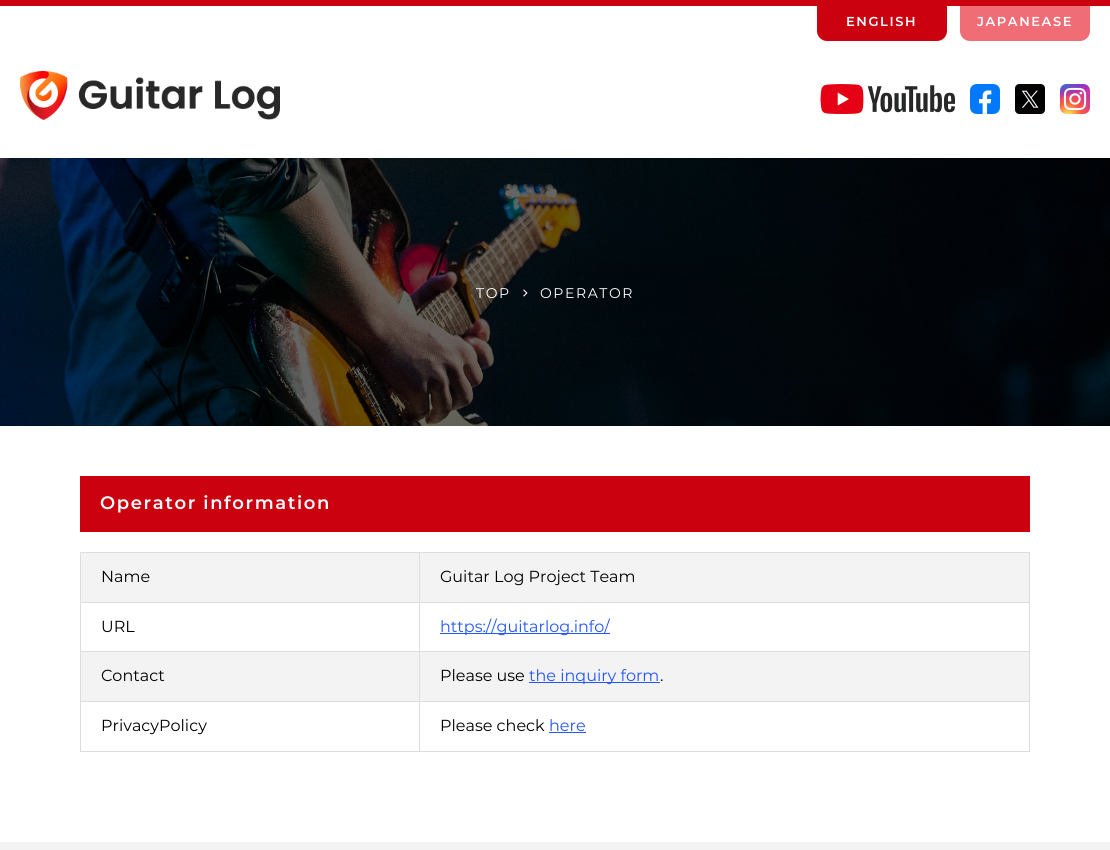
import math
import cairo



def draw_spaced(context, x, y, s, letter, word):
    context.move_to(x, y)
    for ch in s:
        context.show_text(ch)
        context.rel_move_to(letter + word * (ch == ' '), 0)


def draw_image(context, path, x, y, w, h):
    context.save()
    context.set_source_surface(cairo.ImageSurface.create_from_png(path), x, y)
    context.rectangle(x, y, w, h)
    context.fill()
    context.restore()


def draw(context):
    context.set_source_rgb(1, 1, 1)
    context.paint()
    context.set_source_rgb(204 / 255, 1 / 255, 16 / 255)
    context.rectangle(0, 0, 1110, 6)
    context.fill()
    context.new_path()
    context.move_to(817, 6)
    context.line_to(947, 6)
    context.line_to(947, 31)
    context.curve_to(947, 36.5, 942.5, 41, 937, 41)
    context.line_to(827, 41)
    context.curve_to(821.5, 41, 817, 36.5, 817, 31)
    context.close_path()
    context.fill()
    context.set_source_rgb(241 / 255, 109 / 255, 118 / 255)
    context.new_path()
    context.move_to(960, 6)
    context.line_to(1090, 6)
    context.line_to(1090, 31)
    context.curve_to(1090, 36.5, 1085.5, 41, 1080, 41)
    context.line_to(970, 41)
    context.curve_to(964.5, 41, 960, 36.5, 960, 31)
    context.close_path()
    context.fill()
    draw_image(context, "images/1.png", 20, 71, 260, 49)
    draw_image(context, "images/2.png", 820, 84, 135, 30)
    draw_image(context, "images/3.png", 970, 84, 30, 30)
    draw_image(context, "images/4.png", 1015, 84, 30, 30)
    draw_image(context, "images/5.png", 1060, 84, 30, 30)
    draw_image(context, "images/6.png", 0, 158, 1110, 268)
    context.set_source_rgb(1, 1, 1)
    context.new_path()
    context.move_to(523, 290)
    context.line_to(524, 289.5)
    context.line_to(527.5, 293)
    context.line_to(526.5, 293.5)
    context.close_path()
    context.fill()
    context.new_path()
    context.move_to(523, 296)
    context.line_to(526.5, 292.5)
    context.line_to(527.5, 293)
    context.line_to(524, 296.5)
    context.close_path()
    context.fill()
    context.set_source_rgb(204 / 255, 1 / 255, 16 / 255)
    context.rectangle(80, 476, 950, 56)
    context.fill()
    context.set_source_rgb(243 / 255, 243 / 255, 243 / 255)
    context.rectangle(81, 553, 948, 49)
    context.fill()
    context.set_source_rgb(221 / 255, 221 / 255, 221 / 255)
    context.rectangle(419, 552, 611, 1)
    context.fill()
    context.rectangle(419, 602, 611, 1)
    context.fill()
    context.rectangle(419, 651, 611, 1)
    context.fill()
    context.set_source_rgb(243 / 255, 243 / 255, 243 / 255)
    context.rectangle(81, 652, 948, 49)
    context.fill()
    context.set_source_rgb(221 / 255, 221 / 255, 221 / 255)
    context.rectangle(419, 701, 611, 1)
    context.fill()
    context.rectangle(1029, 701, 1, 51)
    context.fill()
    context.rectangle(419, 751, 611, 1)
    context.fill()
    context.rectangle(419, 701, 1, 51)
    context.fill()
    context.rectangle(80, 701, 340, 1)
    context.fill()
    context.rectangle(419, 651, 1, 51)
    context.fill()
    context.rectangle(80, 651, 340, 1)
    context.fill()
    context.rectangle(419, 602, 1, 50)
    context.fill()
    context.rectangle(80, 602, 340, 1)
    context.fill()
    context.rectangle(419, 552, 1, 51)
    context.fill()
    context.rectangle(80, 552, 340, 1)
    context.fill()
    context.rectangle(80, 751, 340, 1)
    context.fill()
    context.rectangle(80, 701, 1, 51)
    context.fill()
    context.rectangle(80, 651, 1, 51)
    context.fill()
    context.rectangle(80, 602, 1, 50)
    context.fill()
    context.rectangle(80, 552, 1, 51)
    context.fill()
    context.rectangle(1029, 651, 1, 51)
    context.fill()
    context.rectangle(1029, 602, 1, 50)
    context.fill()
    context.rectangle(1029, 552, 1, 51)
    context.fill()
    context.set_source_rgb(34 / 255, 86 / 255, 1)
    context.rectangle(440, 633, 170, 1)
    context.fill()
    context.rectangle(529, 682, 131, 1)
    context.fill()
    context.rectangle(549, 732, 37, 1)
    context.fill()
    context.set_source_rgb(243 / 255, 243 / 255, 243 / 255)
    context.rectangle(0, 842, 1110, 8)
    context.fill()
    context.select_font_face("Montserrat SemiBold")
    context.set_font_size(13)
    context.set_source_rgb(1, 1, 1)
    draw_spaced(context, 846, 26, "ENGLISH", 1.6, 0)
    draw_spaced(context, 977, 26, "JAPANEASE", 1.6, 0)
    context.select_font_face("Montserrat")
    context.set_font_size(14)
    draw_spaced(context, 476, 298, "TOP", 1.6, 0)
    draw_spaced(context, 540, 298, "OPERATOR", 1.6, 0)
    context.select_font_face("Montserrat SemiBold")
    context.set_font_size(18)
    draw_spaced(context, 100, 509, "Operator information", 1.6, 0)
    context.select_font_face("Montserrat")
    context.set_font_size(16)
    context.set_source_rgb(0, 0, 0)
    context.move_to(101, 582)
    context.show_text("Name")
    context.move_to(440, 582)
    context.show_text("Guitar Log Project Team")
    context.move_to(101, 632)
    context.show_text("URL")
    context.set_source_rgb(34 / 255, 86 / 255, 1)
    context.move_to(440, 632)
    context.show_text("https://guitarlog.info/")
    context.set_source_rgb(0, 0, 0)
    context.move_to(101, 681)
    context.show_text("Contact")
    context.move_to(440, 681)
    context.show_text("Please use")
    context.set_source_rgb(34 / 255, 86 / 255, 1)
    context.move_to(529, 681)
    context.show_text("the inquiry form")
    context.set_source_rgb(0, 0, 0)
    context.move_to(660, 681)
    context.show_text(".")
    context.move_to(101, 731)
    context.show_text("PrivacyPolicy")
    context.move_to(440, 731)
    context.show_text("Please check")
    context.set_source_rgb(34 / 255, 86 / 255, 1)
    context.move_to(549, 731)
    context.show_text("here")


surface = cairo.ImageSurface(cairo.Format.RGB24, 1110, 850)
context = cairo.Context(surface)
options = cairo.FontOptions()
options.set_hint_metrics(cairo.HintMetrics.OFF)
options.set_hint_style(cairo.HintStyle.NONE)
context.set_font_options(options)
context.set_miter_limit(4)
draw(context)
surface.write_to_png("out.png")
